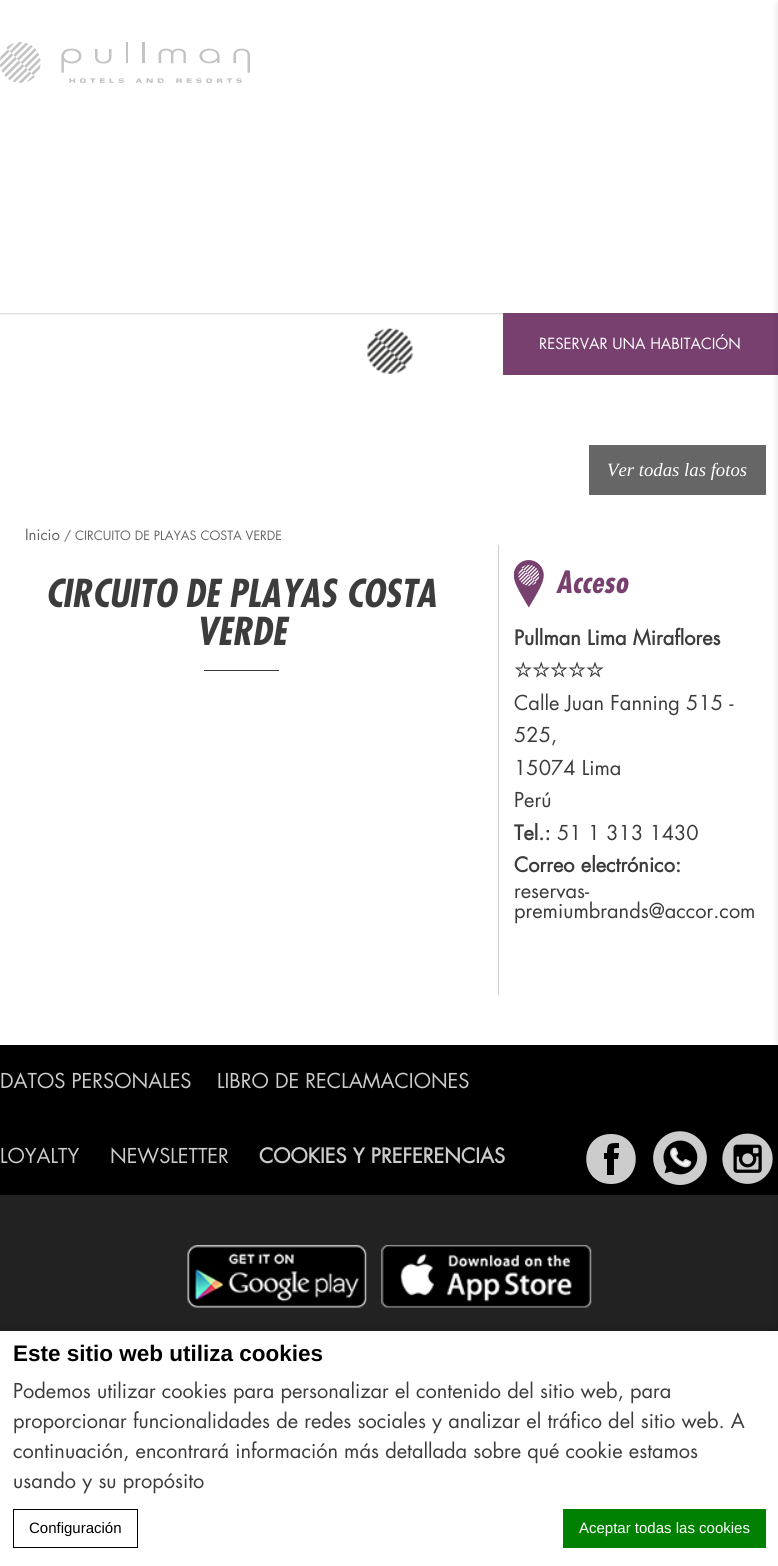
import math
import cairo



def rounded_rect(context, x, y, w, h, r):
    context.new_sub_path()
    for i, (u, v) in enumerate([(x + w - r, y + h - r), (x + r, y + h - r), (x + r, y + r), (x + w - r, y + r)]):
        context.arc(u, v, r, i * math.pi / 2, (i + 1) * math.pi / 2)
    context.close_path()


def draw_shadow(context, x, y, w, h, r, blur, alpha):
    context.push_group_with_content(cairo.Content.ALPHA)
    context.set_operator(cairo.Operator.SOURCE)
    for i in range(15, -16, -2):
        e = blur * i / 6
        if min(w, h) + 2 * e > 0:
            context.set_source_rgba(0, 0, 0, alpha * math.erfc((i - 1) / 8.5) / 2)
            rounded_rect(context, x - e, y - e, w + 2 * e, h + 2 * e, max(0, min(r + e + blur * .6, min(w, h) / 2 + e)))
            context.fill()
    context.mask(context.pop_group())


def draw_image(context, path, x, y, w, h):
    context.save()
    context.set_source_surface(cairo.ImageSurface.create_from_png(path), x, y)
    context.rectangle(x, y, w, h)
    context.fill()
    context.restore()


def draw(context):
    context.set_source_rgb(1, 1, 1)
    context.paint()
    context.save()
    context.set_fill_rule(cairo.FillRule.EVEN_ODD)
    context.new_path()
    context.move_to(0, 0)
    context.line_to(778, 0)
    context.line_to(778, 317)
    context.line_to(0, 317)
    context.close_path()
    context.move_to(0, 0)
    context.line_to(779, 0)
    context.line_to(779, 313)
    context.line_to(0, 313)
    context.close_path()
    context.clip()
    context.set_source_rgb(0, 0, 0)
    draw_shadow(context, 0, 1, 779, 313, 0, 0.5, 0.15)
    context.restore()
    draw_image(context, "images/1.png", 0, 42, 250, 41)
    context.set_source_rgb(119 / 255, 64 / 255, 111 / 255)
    context.rectangle(503, 313, 275, 62)
    context.fill()
    context.set_source_rgb(0, 0, 0)
    context.rectangle(0, 1045, 778, 150)
    context.fill()
    draw_image(context, "images/5.png", 722, 1133, 51, 51)
    context.set_source_rgb(34 / 255, 34 / 255, 34 / 255)
    context.rectangle(0, 1195, 778, 136)
    context.fill()
    context.set_source_rgb(0, 0, 0)
    draw_shadow(context, 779, 4, 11, 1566, 0, 4, 0.15)
    draw_image(context, "images/2.png", 367, 328, 46, 46)
    context.set_source_rgb(102 / 255, 102 / 255, 102 / 255)
    context.rectangle(589, 445, 177, 50)
    context.fill()
    context.set_source_rgb(207 / 255, 207 / 255, 207 / 255)
    context.rectangle(498, 545, 1, 450)
    context.fill()
    context.set_source_rgb(61 / 255, 60 / 255, 60 / 255)
    context.rectangle(204, 670, 75, 1)
    context.fill()
    draw_image(context, "images/3.png", 514, 560, 30, 48)
    context.set_source_rgb(204 / 255, 204 / 255, 204 / 255)
    context.new_path()
    context.move_to(611, 1134)
    context.curve_to(578, 1134, 578, 1184, 611, 1184)
    context.curve_to(644, 1184, 644, 1134, 611, 1134)
    context.close_path()
    context.move_to(619, 1148)
    context.curve_to(613, 1148, 614, 1148, 614, 1153)
    context.line_to(619, 1153)
    context.line_to(618, 1159)
    context.line_to(614, 1159)
    context.line_to(614, 1175)
    context.line_to(607, 1175)
    context.line_to(607, 1159)
    context.line_to(604, 1159)
    context.line_to(604, 1153)
    context.line_to(607, 1153)
    context.curve_to(607, 1143, 609, 1143, 619, 1143)
    context.close_path()
    context.fill()
    draw_image(context, "images/4.png", 653, 1131, 54, 54)
    draw_image(context, "images/6.png", 187, 1245, 180, 63)
    draw_image(context, "images/7.png", 381, 1245, 211, 63)
    context.set_source_rgb(0, 0, 0)
    draw_shadow(context, 0, 1331, 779, 235, 0, 6, 0.3)
    context.set_source_rgb(1, 1, 1)
    context.rectangle(0, 1331, 778, 235)
    context.fill()
    context.rectangle(13.5, 1509.5, 124, 38)
    context.set_source_rgb(0, 0, 0)
    context.set_line_width(1)
    context.stroke()
    context.set_source_rgb(0, 128 / 255, 0)
    context.rectangle(563, 1509, 203, 39)
    context.fill()
    context.select_font_face("Futura")
    context.set_font_size(15)
    context.set_source_rgb(1, 1, 1)
    context.move_to(539, 349)
    context.show_text("RESERVAR UNA HABITACIÓN")
    context.select_font_face("Liberation Serif", cairo.FontSlant.ITALIC)
    context.set_font_size(18.75)
    context.move_to(607, 476)
    context.show_text("Ver todas las fotos")
    context.select_font_face("Futura")
    context.set_font_size(15)
    context.set_source_rgb(102 / 255, 102 / 255, 102 / 255)
    context.move_to(25, 540)
    context.show_text("Inicio")
    context.set_font_size(12.5)
    context.move_to(64, 540)
    context.show_text("/ CIRCUITO DE PLAYAS COSTA VERDE")
    context.select_font_face("Futura", cairo.FontSlant.ITALIC, cairo.FontWeight.BOLD)
    context.set_font_size(37.5)
    context.set_source_rgb(61 / 255, 60 / 255, 60 / 255)
    context.move_to(45, 607)
    context.show_text("CIRCUITO DE PLAYAS COSTA")
    context.move_to(196, 645)
    context.show_text("VERDE")
    context.set_font_size(30)
    context.set_source_rgb(119 / 255, 64 / 255, 111 / 255)
    context.move_to(556, 593)
    context.show_text("Acceso")
    context.select_font_face("Futura", cairo.FontSlant.NORMAL, cairo.FontWeight.BOLD)
    context.set_font_size(20)
    context.set_source_rgb(61 / 255, 60 / 255, 60 / 255)
    context.move_to(514, 645)
    context.show_text("Pullman Lima Miraflores")
    context.select_font_face("DejaVu Sans", cairo.FontSlant.NORMAL, cairo.FontWeight.BOLD)
    context.move_to(514, 677)
    context.show_text("☆☆☆☆☆")
    context.select_font_face("Futura")
    context.move_to(514, 710)
    context.show_text("Calle Juan Fanning 515 -")
    context.move_to(514, 742)
    context.show_text("525,")
    context.move_to(514, 775)
    context.show_text("15074 Lima")
    context.move_to(514, 807)
    context.show_text("Perú")
    context.select_font_face("Futura", cairo.FontSlant.NORMAL, cairo.FontWeight.BOLD)
    context.move_to(514, 840)
    context.show_text("Tel.:")
    context.select_font_face("Futura")
    context.move_to(557, 840)
    context.show_text("51 1 313 1430")
    context.select_font_face("Futura", cairo.FontSlant.NORMAL, cairo.FontWeight.BOLD)
    context.move_to(514, 872)
    context.show_text("Correo electrónico:")
    context.select_font_face("Futura")
    context.move_to(514, 898)
    context.show_text("reservas-")
    context.move_to(514, 918)
    context.show_text("premiumbrands@accor.com")
    context.set_source_rgb(204 / 255, 204 / 255, 204 / 255)
    context.move_to(0, 1088)
    context.show_text("DATOS PERSONALES")
    context.move_to(217, 1088)
    context.show_text("LIBRO DE RECLAMACIONES")
    context.move_to(0, 1163)
    context.show_text("LOYALTY")
    context.move_to(110, 1163)
    context.show_text("NEWSLETTER")
    context.select_font_face("Futura", cairo.FontSlant.NORMAL, cairo.FontWeight.BOLD)
    context.move_to(259, 1163)
    context.show_text("COOKIES Y PREFERENCIAS")
    context.select_font_face("Liberation Sans", cairo.FontSlant.NORMAL, cairo.FontWeight.BOLD)
    context.set_font_size(22.5)
    context.set_source_rgb(0, 0, 0)
    context.move_to(13, 1361)
    context.show_text("Este sitio web utiliza cookies")
    context.select_font_face("Futura")
    context.set_font_size(20)
    context.set_source_rgb(61 / 255, 60 / 255, 60 / 255)
    context.move_to(13, 1398)
    context.show_text("Podemos utilizar cookies para personalizar el contenido del sitio web, para")
    context.move_to(13, 1428)
    context.show_text("proporcionar funcionalidades de redes sociales y analizar el tráfico del sitio web. A")
    context.move_to(13, 1458)
    context.show_text("continuación, encontrará información más detallada sobre qué cookie estamos")
    context.move_to(13, 1488)
    context.show_text("usando y su propósito")
    context.select_font_face("Liberation Sans")
    context.set_font_size(15)
    context.set_source_rgb(0, 0, 0)
    context.move_to(29, 1533)
    context.show_text("Configuración")
    context.set_source_rgb(1, 1, 1)
    context.move_to(579, 1533)
    context.show_text("Aceptar todas las cookies")


surface = cairo.ImageSurface(cairo.Format.RGB24, 778, 1566)
context = cairo.Context(surface)
options = cairo.FontOptions()
options.set_hint_metrics(cairo.HintMetrics.OFF)
options.set_hint_style(cairo.HintStyle.NONE)
context.set_font_options(options)
context.set_miter_limit(4)
draw(context)
surface.write_to_png("out.png")
